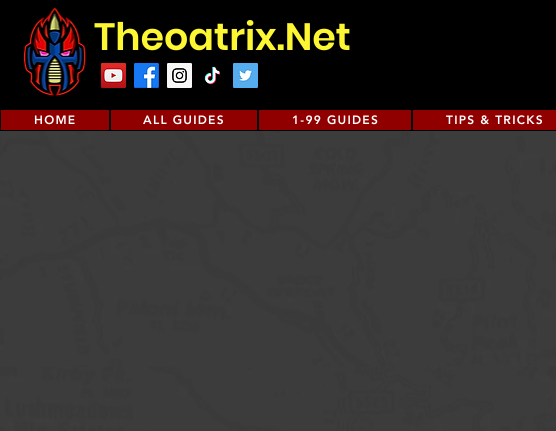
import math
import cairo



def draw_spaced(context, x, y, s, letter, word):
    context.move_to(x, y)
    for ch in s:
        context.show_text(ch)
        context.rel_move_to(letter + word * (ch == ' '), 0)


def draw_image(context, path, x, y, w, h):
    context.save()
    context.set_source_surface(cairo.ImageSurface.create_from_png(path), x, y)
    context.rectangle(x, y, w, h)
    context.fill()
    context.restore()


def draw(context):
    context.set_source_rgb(90 / 255, 89 / 255, 89 / 255)
    context.paint()
    context.set_source_rgb(0, 0, 0)
    context.rectangle(0, 0, 556, 109)
    context.fill()
    draw_image(context, "images/1.png", 23, 7, 64, 89)
    draw_image(context, "images/2.png", 101, 63, 25, 25)
    draw_image(context, "images/3.png", 134, 63, 25, 25)
    draw_image(context, "images/4.png", 167, 63, 25, 25)
    draw_image(context, "images/5.png", 204, 67, 17, 18)
    draw_image(context, "images/6.png", 233, 63, 25, 25)
    context.set_source_rgb(145 / 255, 0, 0)
    context.rectangle(0.5, 109.5, 109, 21)
    context.fill_preserve()
    context.set_source_rgb(0, 0, 0)
    context.set_line_width(1)
    context.stroke()
    context.set_source_rgb(145 / 255, 0, 0)
    context.rectangle(110.5, 109.5, 147, 21)
    context.fill_preserve()
    context.set_source_rgb(0, 0, 0)
    context.stroke()
    context.set_source_rgb(145 / 255, 0, 0)
    context.rectangle(258.5, 109.5, 153, 21)
    context.fill_preserve()
    context.set_source_rgb(0, 0, 0)
    context.stroke()
    context.set_source_rgb(145 / 255, 0, 0)
    context.rectangle(412.5, 109.5, 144, 21)
    context.fill_preserve()
    context.set_source_rgb(0, 0, 0)
    context.stroke()
    draw_image(context, "images/7.png", 0, 131, 556, 300)
    context.set_source_rgba(24 / 255, 24 / 255, 24 / 255, 0.2)
    context.rectangle(0, 131, 556, 300)
    context.fill()
    context.select_font_face("Poppins SemiBold")
    context.set_font_size(38)
    context.set_source_rgb(253 / 255, 247 / 255, 51 / 255)
    context.move_to(94, 50)
    context.show_text("Theoatrix.Net")
    context.select_font_face("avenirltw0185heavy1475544 Black")
    context.set_font_size(12)
    context.set_source_rgb(1, 1, 1)
    draw_spaced(context, 34, 124, "HOME", 1.25, 0)
    draw_spaced(context, 143, 124, "ALL GUIDES", 1.25, 0)
    draw_spaced(context, 292, 124, "1-99 GUIDES", 1.25, 0)
    draw_spaced(context, 446, 124, "TIPS & TRICKS", 1.25, 0)


surface = cairo.ImageSurface(cairo.Format.RGB24, 556, 431)
context = cairo.Context(surface)
options = cairo.FontOptions()
options.set_hint_metrics(cairo.HintMetrics.OFF)
options.set_hint_style(cairo.HintStyle.NONE)
context.set_font_options(options)
context.set_miter_limit(4)
draw(context)
surface.write_to_png("out.png")
